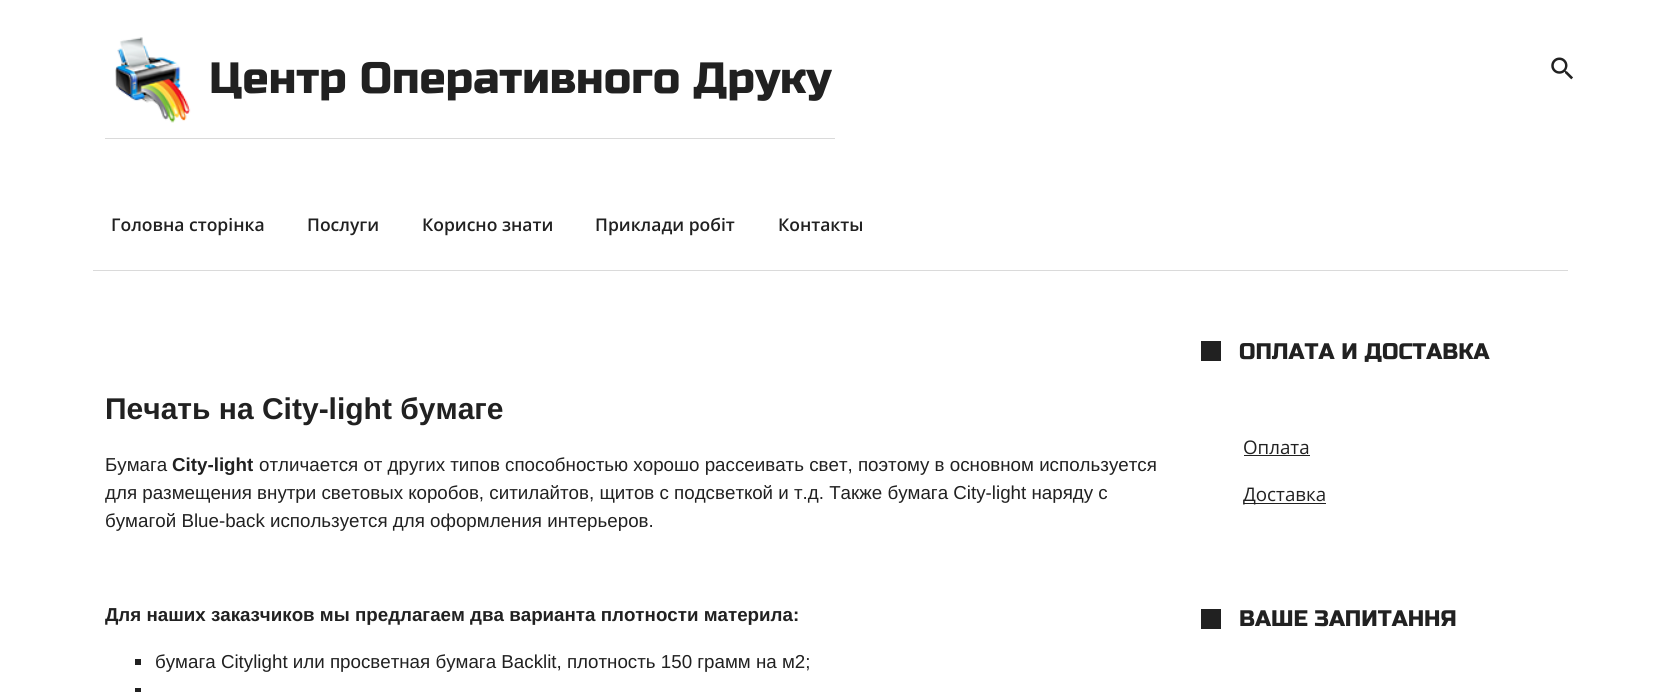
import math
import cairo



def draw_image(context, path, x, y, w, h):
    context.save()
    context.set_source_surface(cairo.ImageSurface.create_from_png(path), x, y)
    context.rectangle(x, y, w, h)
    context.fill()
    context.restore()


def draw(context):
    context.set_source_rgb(1, 1, 1)
    context.paint()
    draw_image(context, "images/1.png", 115, 37, 76, 86)
    context.set_source_rgb(218 / 255, 218 / 255, 218 / 255)
    context.rectangle(105, 138, 730, 1)
    context.fill()
    draw_image(context, "images/2.png", 1551, 57, 22, 23)
    context.rectangle(93, 270, 1475, 1)
    context.fill()
    context.set_source_rgb(33 / 255, 33 / 255, 33 / 255)
    context.rectangle(135, 659, 6, 6)
    context.fill()
    context.rectangle(135, 688, 6, 4)
    context.fill()
    context.rectangle(1201, 341, 20, 20)
    context.fill()
    context.rectangle(1244, 455, 66, 1)
    context.fill()
    context.rectangle(1244, 503, 82, 1)
    context.fill()
    context.rectangle(1201, 609, 20, 20)
    context.fill()
    context.select_font_face("Russo One")
    context.set_font_size(43.75)
    context.move_to(209, 93)
    context.show_text("Центр Оперативного Друку")
    context.select_font_face("Open Sans SemiBold")
    context.set_font_size(17.5)
    context.move_to(111, 231)
    context.show_text("Головна сторінка")
    context.move_to(307, 231)
    context.show_text("Послуги")
    context.move_to(422, 231)
    context.show_text("Корисно знати")
    context.move_to(595, 231)
    context.show_text("Приклади робіт")
    context.move_to(778, 231)
    context.show_text("Контакты")
    context.select_font_face("Liberation Sans", cairo.FontSlant.NORMAL, cairo.FontWeight.BOLD)
    context.set_font_size(30)
    context.move_to(105, 419)
    context.show_text("Печать на City-light бумаге")
    context.select_font_face("Liberation Sans")
    context.set_font_size(18.75)
    context.move_to(105, 471)
    context.show_text("Бумага")
    context.select_font_face("Liberation Sans", cairo.FontSlant.NORMAL, cairo.FontWeight.BOLD)
    context.move_to(172, 471)
    context.show_text("City-light")
    context.select_font_face("Liberation Sans")
    context.move_to(259, 471)
    context.show_text("отличается от других типов способностью хорошо рассеивать свет, поэтому в основном используется")
    context.move_to(105, 499)
    context.show_text("для размещения внутри световых коробов, ситилайтов, щитов с подсветкой и т.д. Также бумага City-light наряду с")
    context.move_to(105, 527)
    context.show_text("бумагой Blue-back используется для оформления интерьеров.")
    context.select_font_face("Liberation Sans", cairo.FontSlant.NORMAL, cairo.FontWeight.BOLD)
    context.move_to(105, 621)
    context.show_text("Для наших заказчиков мы предлагаем два варианта плотности материла:")
    context.select_font_face("Liberation Sans")
    context.move_to(155, 668)
    context.show_text("бумага Citylight или просветная бумага Backlit, плотность 150 грамм на м2;")
    context.select_font_face("Russo One")
    context.set_font_size(22.5)
    context.move_to(1239, 359)
    context.show_text("ОПЛАТА И ДОСТАВКА")
    context.select_font_face("Open Sans")
    context.set_font_size(18.75)
    context.move_to(1243, 454)
    context.show_text("Оплата")
    context.move_to(1243, 501)
    context.show_text("Доставка")
    context.select_font_face("Russo One")
    context.set_font_size(22.5)
    context.move_to(1239, 626)
    context.show_text("ВАШЕ ЗАПИТАННЯ")


surface = cairo.ImageSurface(cairo.Format.RGB24, 1672, 692)
context = cairo.Context(surface)
options = cairo.FontOptions()
options.set_hint_metrics(cairo.HintMetrics.OFF)
options.set_hint_style(cairo.HintStyle.NONE)
context.set_font_options(options)
context.set_miter_limit(4)
draw(context)
surface.write_to_png("out.png")
